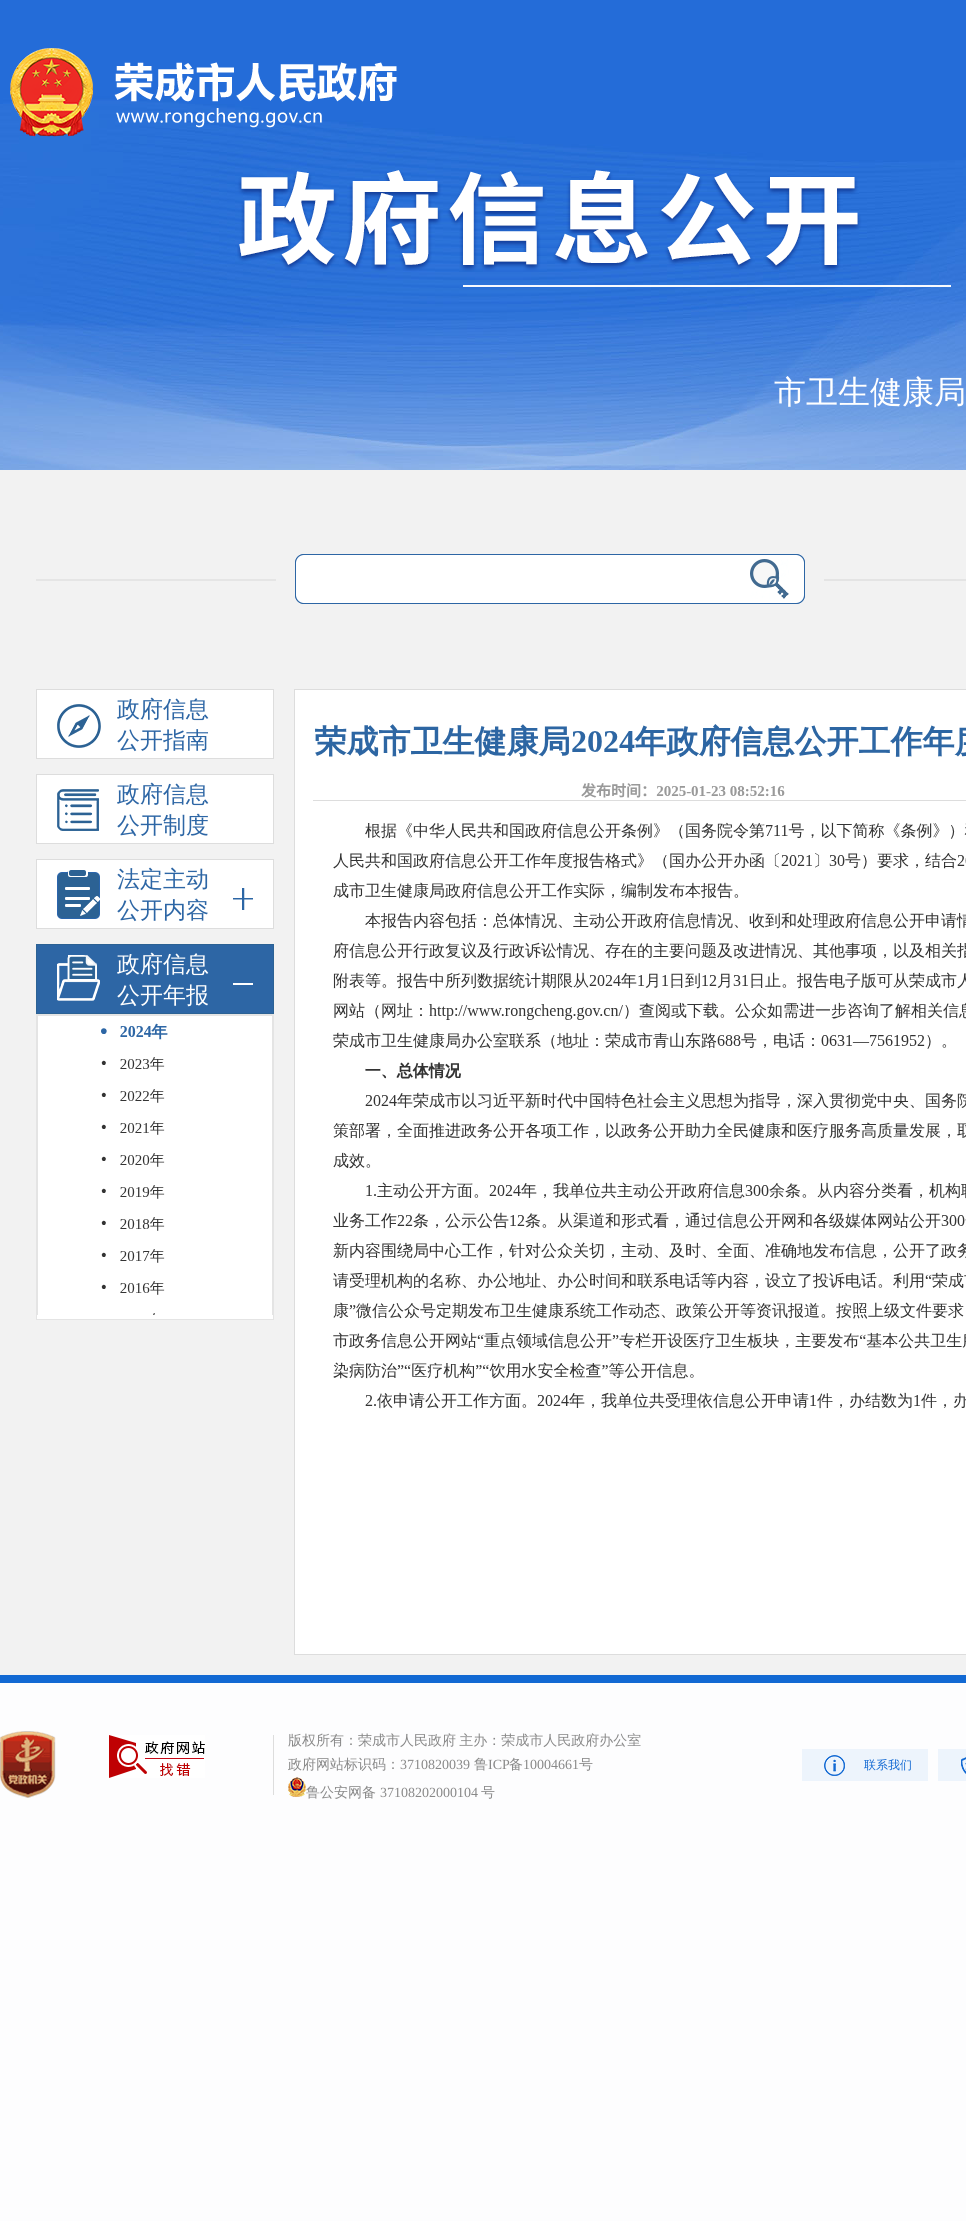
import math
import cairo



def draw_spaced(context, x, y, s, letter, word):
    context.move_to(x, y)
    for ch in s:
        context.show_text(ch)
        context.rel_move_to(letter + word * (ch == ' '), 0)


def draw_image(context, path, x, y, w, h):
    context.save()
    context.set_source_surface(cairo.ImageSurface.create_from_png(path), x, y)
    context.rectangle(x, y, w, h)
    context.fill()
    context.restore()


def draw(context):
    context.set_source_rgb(253 / 255, 253 / 255, 254 / 255)
    context.paint()
    draw_image(context, "images/1.png", 0, 0, 966, 470)
    draw_image(context, "images/2.png", 10, 48, 387, 89)
    draw_image(context, "images/3.png", 237, 170, 714, 117)
    context.set_source_rgb(242 / 255, 242 / 255, 242 / 255)
    context.rectangle(0, 470, 966, 1205)
    context.fill()
    draw_image(context, "images/4.png", 36, 554, 930, 50)
    draw_image(context, "images/5.png", 295, 554, 510, 50)
    draw_image(context, "images/6.png", 750, 559, 39, 40)
    context.set_source_rgb(1, 1, 1)
    context.rectangle(36.5, 689.5, 237, 69)
    context.fill_preserve()
    context.set_source_rgb(221 / 255, 221 / 255, 221 / 255)
    context.set_line_width(1)
    context.stroke()
    draw_image(context, "images/7.png", 57, 704, 44, 44)
    context.set_source_rgb(1, 1, 1)
    context.rectangle(36.5, 774.5, 237, 69)
    context.fill_preserve()
    context.set_source_rgb(221 / 255, 221 / 255, 221 / 255)
    context.stroke()
    draw_image(context, "images/8.png", 57, 789, 42, 42)
    context.set_source_rgb(1, 1, 1)
    context.rectangle(36.5, 859.5, 237, 69)
    context.fill_preserve()
    context.set_source_rgb(221 / 255, 221 / 255, 221 / 255)
    context.stroke()
    draw_image(context, "images/9.png", 57, 870, 43, 49)
    draw_image(context, "images/10.png", 233, 888, 20, 22)
    context.set_source_rgb(45 / 255, 102 / 255, 165 / 255)
    context.rectangle(36.5, 944.5, 237, 69)
    context.fill_preserve()
    context.set_source_rgb(44 / 255, 98 / 255, 148 / 255)
    context.stroke()
    draw_image(context, "images/11.png", 57, 955, 43, 46)
    context.set_source_rgb(1, 1, 1)
    context.rectangle(233, 983, 20, 2)
    context.fill()
    context.rectangle(37, 1315, 236, 4)
    context.fill()
    context.rectangle(36.5, 1014.5, 237, 305)
    context.set_source_rgb(228 / 255, 228 / 255, 228 / 255)
    context.stroke()
    draw_image(context, "images/12.png", 37, 1015, 236, 300)
    context.set_source_rgb(1, 1, 1)
    context.rectangle(294.5, 689.5, 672, 965)
    context.fill_preserve()
    context.set_source_rgb(221 / 255, 221 / 255, 221 / 255)
    context.stroke()
    draw_image(context, "images/13.png", 313, 724, 653, 685)
    context.set_source_rgb(18 / 255, 105 / 255, 211 / 255)
    context.rectangle(0, 1675, 966, 8)
    context.fill()
    draw_image(context, "images/14.png", 0, 1731, 56, 67)
    draw_image(context, "images/15.png", 109, 1735, 96, 43)
    context.set_source_rgb(221 / 255, 221 / 255, 221 / 255)
    context.rectangle(273, 1735, 1, 60)
    context.fill()
    draw_image(context, "images/16.png", 288, 1777, 18, 20)
    context.set_source_rgb(237 / 255, 244 / 255, 252 / 255)
    context.rectangle(802, 1749, 126, 32)
    context.fill()
    draw_image(context, "images/17.png", 824, 1755, 21, 21)
    context.rectangle(938, 1749, 28, 32)
    context.fill()
    draw_image(context, "images/18.png", 961, 1757, 5, 17)
    context.select_font_face("WenQuanYi Zen Hei Medium")
    context.set_font_size(32)
    context.set_source_rgb(1, 1, 1)
    context.move_to(774, 403)
    context.show_text("市卫生健康局")
    context.set_font_size(23)
    context.set_source_rgb(45 / 255, 102 / 255, 165 / 255)
    context.move_to(117, 717)
    context.show_text("政府信息")
    context.move_to(117, 748)
    context.show_text("公开指南")
    context.move_to(117, 802)
    context.show_text("政府信息")
    context.move_to(117, 833)
    context.show_text("公开制度")
    context.move_to(117, 887)
    context.show_text("法定主动")
    context.move_to(117, 918)
    context.show_text("公开内容")
    context.set_source_rgb(1, 1, 1)
    context.move_to(117, 972)
    context.show_text("政府信息")
    context.move_to(117, 1003)
    context.show_text("公开年报")
    context.set_font_size(14)
    context.set_source_rgb(136 / 255, 136 / 255, 136 / 255)
    draw_spaced(context, 288, 1745, "版权所有：荣成市人民政府 主办：荣成市人民政府办公室", 0, -1)
    context.move_to(288, 1769)
    context.show_text("政府网站标识码：")
    context.select_font_face("Liberation Serif")
    context.move_to(400, 1769)
    context.show_text("3710820039")
    context.select_font_face("WenQuanYi Zen Hei Medium")
    context.move_to(474, 1769)
    context.show_text("鲁")
    context.select_font_face("Liberation Serif")
    context.move_to(488, 1769)
    context.show_text("ICP")
    context.select_font_face("WenQuanYi Zen Hei Medium")
    context.move_to(509, 1769)
    context.show_text("备")
    context.select_font_face("Liberation Serif")
    context.move_to(523, 1769)
    context.show_text("10004661")
    context.select_font_face("WenQuanYi Zen Hei Medium")
    context.move_to(579, 1769)
    context.show_text("号")
    context.move_to(306, 1797)
    context.show_text("鲁公安网备")
    context.select_font_face("Liberation Serif")
    context.move_to(380, 1797)
    context.show_text("37108202000104")
    context.select_font_face("WenQuanYi Zen Hei Medium")
    context.move_to(481, 1797)
    context.show_text("号")
    context.set_font_size(12)
    context.set_source_rgb(18 / 255, 105 / 255, 211 / 255)
    context.move_to(864, 1769)
    context.show_text("联系我们")


surface = cairo.ImageSurface(cairo.Format.RGB24, 966, 2221)
context = cairo.Context(surface)
options = cairo.FontOptions()
options.set_hint_metrics(cairo.HintMetrics.OFF)
options.set_hint_style(cairo.HintStyle.NONE)
context.set_font_options(options)
context.set_miter_limit(4)
draw(context)
surface.write_to_png("out.png")
